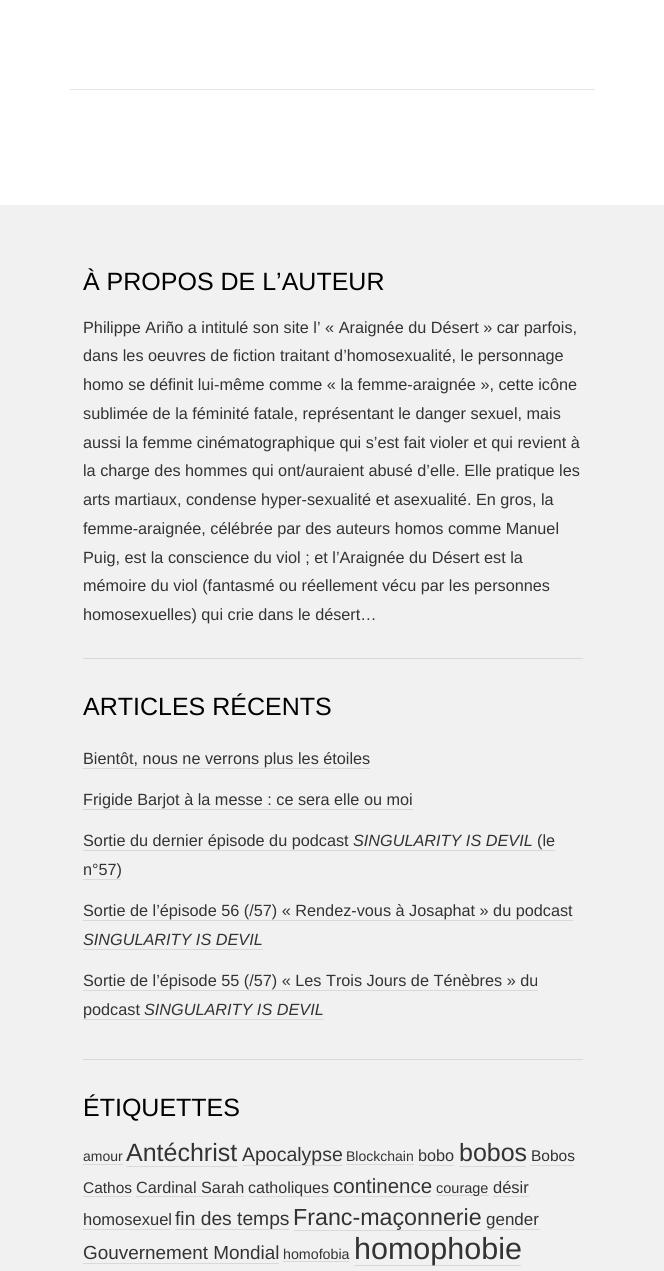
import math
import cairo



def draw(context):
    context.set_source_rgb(1, 1, 1)
    context.paint()
    context.set_source_rgb(230 / 255, 230 / 255, 230 / 255)
    context.rectangle(70, 89, 525, 1)
    context.fill()
    context.set_source_rgb(241 / 255, 241 / 255, 241 / 255)
    context.rectangle(0, 205, 664, 1066)
    context.fill()
    context.set_source_rgb(217 / 255, 217 / 255, 217 / 255)
    context.rectangle(83, 658, 500, 1)
    context.fill()
    context.rectangle(83, 1059, 500, 1)
    context.fill()
    context.rectangle(83, 768, 287, 1)
    context.fill()
    context.rectangle(83, 809, 330, 1)
    context.fill()
    context.rectangle(83, 850, 472, 1)
    context.fill()
    context.rectangle(83, 879, 38, 1)
    context.fill()
    context.rectangle(83, 920, 490, 1)
    context.fill()
    context.rectangle(83, 949, 180, 1)
    context.fill()
    context.rectangle(83, 990, 455, 1)
    context.fill()
    context.rectangle(83, 1019, 241, 1)
    context.fill()
    context.rectangle(83, 1164, 40, 1)
    context.fill()
    context.rectangle(126, 1166, 112, 1)
    context.fill()
    context.rectangle(243, 1165, 100, 1)
    context.fill()
    context.rectangle(346, 1164, 68, 1)
    context.fill()
    context.rectangle(419, 1165, 35, 1)
    context.fill()
    context.rectangle(459, 1166, 67, 1)
    context.fill()
    context.rectangle(530, 1165, 44, 1)
    context.fill()
    context.rectangle(83, 1196, 48, 1)
    context.fill()
    context.rectangle(136, 1196, 108, 1)
    context.fill()
    context.rectangle(249, 1196, 80, 1)
    context.fill()
    context.rectangle(333, 1196, 98, 1)
    context.fill()
    context.rectangle(436, 1195, 53, 1)
    context.fill()
    context.rectangle(493, 1196, 36, 1)
    context.fill()
    context.rectangle(83, 1229, 87, 1)
    context.fill()
    context.rectangle(175, 1229, 114, 1)
    context.fill()
    context.rectangle(294, 1230, 187, 1)
    context.fill()
    context.rectangle(486, 1229, 54, 1)
    context.fill()
    context.rectangle(83, 1263, 196, 1)
    context.fill()
    context.rectangle(283, 1261, 66, 1)
    context.fill()
    context.rectangle(354, 1265, 167, 1)
    context.fill()
    context.select_font_face("Liberation Sans")
    context.set_font_size(25)
    context.set_source_rgb(0, 0, 0)
    context.move_to(83, 290)
    context.show_text("À PROPOS DE L’AUTEUR")
    context.set_font_size(16.25)
    context.set_source_rgb(51 / 255, 51 / 255, 51 / 255)
    context.move_to(83, 333)
    context.show_text("Philippe Ariño a intitulé son site l’ « Araignée du Désert » car parfois,")
    context.move_to(83, 361)
    context.show_text("dans les oeuvres de fiction traitant d’homosexualité, le personnage")
    context.move_to(83, 390)
    context.show_text("homo se définit lui-même comme « la femme-araignée », cette icône")
    context.move_to(83, 419)
    context.show_text("sublimée de la féminité fatale, représentant le danger sexuel, mais")
    context.move_to(83, 448)
    context.show_text("aussi la femme cinématographique qui s’est fait violer et qui revient à")
    context.move_to(83, 476)
    context.show_text("la charge des hommes qui ont/auraient abusé d’elle. Elle pratique les")
    context.move_to(83, 505)
    context.show_text("arts martiaux, condense hyper-sexualité et asexualité. En gros, la")
    context.move_to(83, 534)
    context.show_text("femme-araignée, célébrée par des auteurs homos comme Manuel")
    context.move_to(83, 563)
    context.show_text("Puig, est la conscience du viol ; et l’Araignée du Désert est la")
    context.move_to(83, 591)
    context.show_text("mémoire du viol (fantasmé ou réellement vécu par les personnes")
    context.move_to(83, 620)
    context.show_text("homosexuelles) qui crie dans le désert…")
    context.set_font_size(25)
    context.set_source_rgb(0, 0, 0)
    context.move_to(83, 715)
    context.show_text("ARTICLES RÉCENTS")
    context.set_font_size(16.25)
    context.set_source_rgb(51 / 255, 51 / 255, 51 / 255)
    context.move_to(83, 764)
    context.show_text("Bientôt, nous ne verrons plus les étoiles")
    context.move_to(83, 805)
    context.show_text("Frigide Barjot à la messe : ce sera elle ou moi")
    context.move_to(83, 846)
    context.show_text("Sortie du dernier épisode du podcast")
    context.select_font_face("Liberation Sans", cairo.FontSlant.ITALIC)
    context.move_to(353, 846)
    context.show_text("SINGULARITY IS DEVIL")
    context.select_font_face("Liberation Sans")
    context.move_to(537, 846)
    context.show_text("(le")
    context.move_to(83, 875)
    context.show_text("n°57)")
    context.move_to(83, 916)
    context.show_text("Sortie de l’épisode 56 (/57) « Rendez-vous à Josaphat » du podcast")
    context.select_font_face("Liberation Sans", cairo.FontSlant.ITALIC)
    context.move_to(83, 945)
    context.show_text("SINGULARITY IS DEVIL")
    context.select_font_face("Liberation Sans")
    context.move_to(83, 986)
    context.show_text("Sortie de l’épisode 55 (/57) « Les Trois Jours de Ténèbres » du")
    context.move_to(83, 1015)
    context.show_text("podcast")
    context.select_font_face("Liberation Sans", cairo.FontSlant.ITALIC)
    context.move_to(144, 1015)
    context.show_text("SINGULARITY IS DEVIL")
    context.select_font_face("Liberation Sans")
    context.set_font_size(25)
    context.set_source_rgb(0, 0, 0)
    context.move_to(83, 1116)
    context.show_text("ÉTIQUETTES")
    context.set_font_size(14)
    context.set_source_rgb(51 / 255, 51 / 255, 51 / 255)
    context.move_to(83, 1161)
    context.show_text("amour")
    context.set_font_size(25)
    context.move_to(126, 1161)
    context.show_text("Antéchrist")
    context.set_font_size(19.5)
    context.move_to(242, 1161)
    context.show_text("Apocalypse")
    context.set_font_size(14)
    context.move_to(346, 1161)
    context.show_text("Blockchain")
    context.set_font_size(16.25)
    context.move_to(418, 1161)
    context.show_text("bobo")
    context.set_font_size(25)
    context.move_to(459, 1161)
    context.show_text("bobos")
    context.set_font_size(15.5)
    context.move_to(531, 1161)
    context.show_text("Bobos")
    context.move_to(83, 1193)
    context.show_text("Cathos")
    context.set_font_size(16.25)
    context.move_to(136, 1193)
    context.show_text("Cardinal Sarah")
    context.set_font_size(16)
    context.move_to(248, 1193)
    context.show_text("catholiques")
    context.set_font_size(20.5)
    context.move_to(333, 1193)
    context.show_text("continence")
    context.set_font_size(14.5)
    context.move_to(436, 1193)
    context.show_text("courage")
    context.set_font_size(16.5)
    context.move_to(493, 1193)
    context.show_text("désir")
    context.move_to(83, 1225)
    context.show_text("homosexuel")
    context.set_font_size(19.25)
    context.move_to(175, 1225)
    context.show_text("fin des temps")
    context.set_font_size(23.25)
    context.move_to(293, 1225)
    context.show_text("Franc-maçonnerie")
    context.set_font_size(17)
    context.move_to(486, 1225)
    context.show_text("gender")
    context.set_font_size(18.9)
    context.move_to(83, 1259)
    context.show_text("Gouvernement Mondial")
    context.set_font_size(14.25)
    context.move_to(283, 1259)
    context.show_text("homofobia")
    context.set_font_size(30.5)
    context.move_to(354, 1259)
    context.show_text("homophobie")


surface = cairo.ImageSurface(cairo.Format.RGB24, 664, 1271)
context = cairo.Context(surface)
options = cairo.FontOptions()
options.set_hint_metrics(cairo.HintMetrics.OFF)
options.set_hint_style(cairo.HintStyle.NONE)
context.set_font_options(options)
context.set_miter_limit(4)
draw(context)
surface.write_to_png("out.png")
